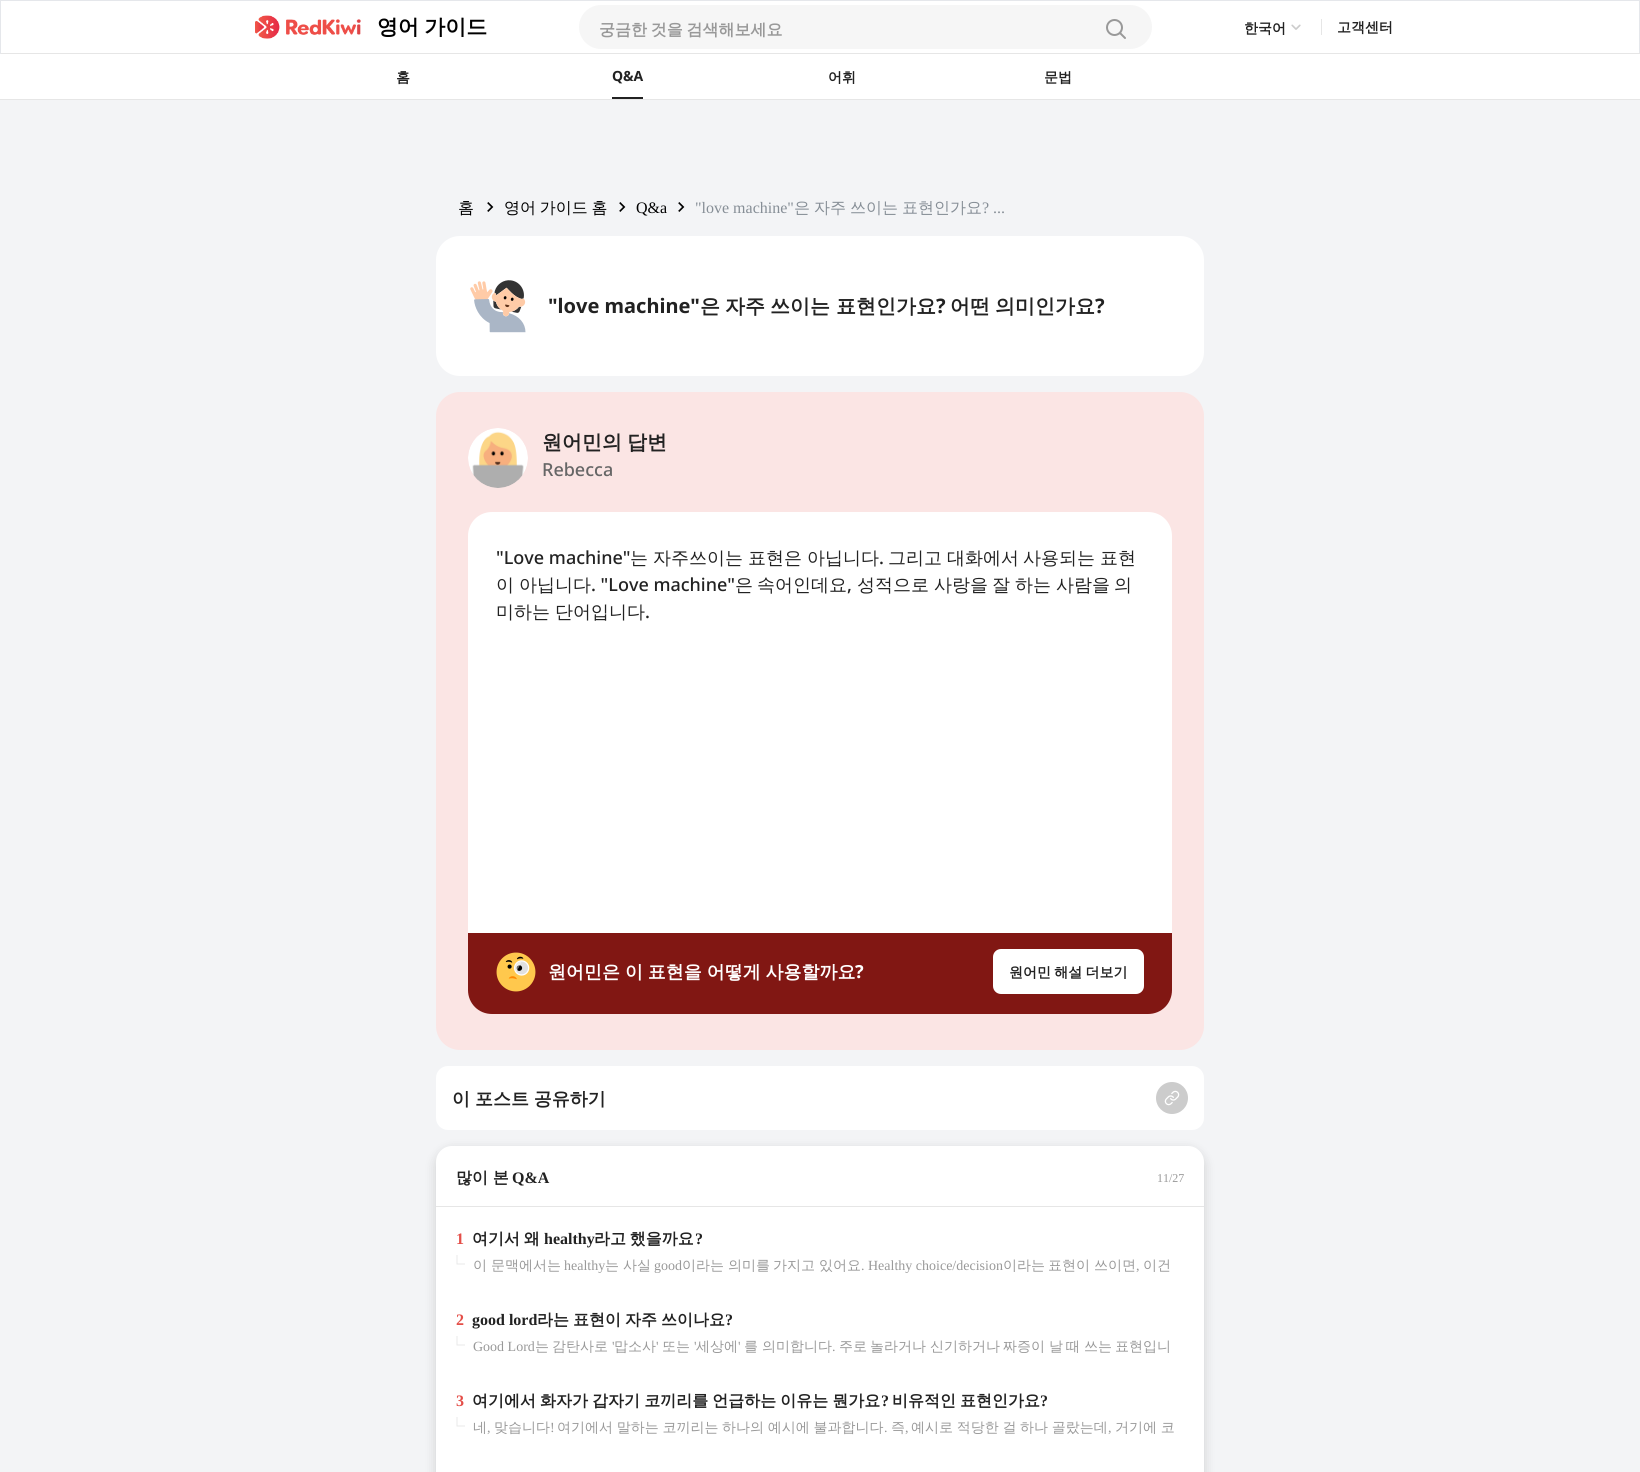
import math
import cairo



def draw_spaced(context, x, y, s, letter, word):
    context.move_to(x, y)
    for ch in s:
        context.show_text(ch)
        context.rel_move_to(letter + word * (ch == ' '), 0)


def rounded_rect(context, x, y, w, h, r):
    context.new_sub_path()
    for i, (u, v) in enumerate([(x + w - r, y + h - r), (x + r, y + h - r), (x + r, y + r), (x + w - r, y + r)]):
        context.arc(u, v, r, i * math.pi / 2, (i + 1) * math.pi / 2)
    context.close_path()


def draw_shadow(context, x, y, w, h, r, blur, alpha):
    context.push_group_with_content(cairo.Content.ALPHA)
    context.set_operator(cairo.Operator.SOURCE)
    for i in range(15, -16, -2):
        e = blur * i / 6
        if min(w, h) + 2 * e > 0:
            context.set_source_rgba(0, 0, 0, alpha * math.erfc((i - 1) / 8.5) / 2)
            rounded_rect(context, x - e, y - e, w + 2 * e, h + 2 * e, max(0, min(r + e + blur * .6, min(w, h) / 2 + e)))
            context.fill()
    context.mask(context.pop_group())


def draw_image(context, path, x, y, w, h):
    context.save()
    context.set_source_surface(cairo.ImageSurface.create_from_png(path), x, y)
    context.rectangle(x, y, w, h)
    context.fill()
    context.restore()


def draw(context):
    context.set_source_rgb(243 / 255, 244 / 255, 246 / 255)
    context.paint()
    context.set_source_rgb(1, 1, 1)
    context.rectangle(1, 1, 1638, 52)
    context.fill()
    context.set_source_rgb(229 / 255, 231 / 255, 235 / 255)
    context.rectangle(0, 0, 1640, 1)
    context.fill()
    context.rectangle(1639, 0, 1, 54)
    context.fill()
    context.set_source_rgb(230 / 255, 230 / 255, 230 / 255)
    context.rectangle(0, 53, 1640, 1)
    context.fill()
    context.set_source_rgb(229 / 255, 231 / 255, 235 / 255)
    context.rectangle(0, 0, 1, 54)
    context.fill()
    draw_image(context, "images/1.png", 255, 15, 106, 24)
    context.set_source_rgb(246 / 255, 246 / 255, 246 / 255)
    rounded_rect(context, 579, 5, 573, 44, 22)
    context.fill()
    draw_image(context, "images/2.png", 1106, 19, 20, 20)
    draw_image(context, "images/3.png", 1291, 24, 10, 6)
    context.set_source_rgb(230 / 255, 230 / 255, 230 / 255)
    context.rectangle(1321, 19, 1, 16)
    context.fill()
    context.set_source_rgb(1, 1, 1)
    context.rectangle(0, 54, 1640, 45)
    context.fill()
    context.set_source_rgb(230 / 255, 230 / 255, 230 / 255)
    context.rectangle(0, 99, 1640, 1)
    context.fill()
    context.set_source_rgb(34 / 255, 34 / 255, 34 / 255)
    context.rectangle(612, 97, 31, 2)
    context.fill()
    draw_image(context, "images/4.png", 487, 202, 7, 10)
    draw_image(context, "images/4.png", 619, 202, 7, 10)
    draw_image(context, "images/4.png", 678, 202, 7, 10)
    context.set_source_rgb(1, 1, 1)
    rounded_rect(context, 436, 236, 768, 140, 24)
    context.fill()
    draw_image(context, "images/5.png", 470, 280, 56, 53)
    context.set_source_rgb(251 / 255, 229 / 255, 228 / 255)
    rounded_rect(context, 436, 392, 768, 658, 24)
    context.fill()
    draw_image(context, "images/6.png", 468, 428, 60, 60)
    context.set_source_rgb(1, 1, 1)
    context.new_path()
    context.move_to(492, 512)
    context.line_to(1148, 512)
    context.curve_to(1161.5, 512, 1172, 522.5, 1172, 536)
    context.line_to(1172, 933)
    context.line_to(468, 933)
    context.line_to(468, 536)
    context.curve_to(468, 522.5, 478.5, 512, 492, 512)
    context.close_path()
    context.fill()
    context.set_source_rgb(129 / 255, 23 / 255, 19 / 255)
    context.new_path()
    context.move_to(468, 933)
    context.line_to(1172, 933)
    context.line_to(1172, 990)
    context.curve_to(1172, 1003.5, 1161.5, 1014, 1148, 1014)
    context.line_to(492, 1014)
    context.curve_to(478.5, 1014, 468, 1003.5, 468, 990)
    context.close_path()
    context.fill()
    draw_image(context, "images/7.png", 496, 952, 40, 40)
    context.set_source_rgb(1, 1, 1)
    rounded_rect(context, 993, 949, 151, 45, 8)
    context.fill()
    rounded_rect(context, 436, 1066, 768, 64, 12)
    context.fill()
    context.set_source_rgb(204 / 255, 204 / 255, 204 / 255)
    context.arc(1172, 1098, 16, 0, 2 * math.pi)
    context.fill()
    draw_image(context, "images/8.png", 1164, 1090, 16, 16)
    context.set_source_rgb(0, 0, 0)
    draw_shadow(context, 436, 1150, 768, 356, 16, 6, 0.15)
    context.set_source_rgb(1, 1, 1)
    rounded_rect(context, 436, 1146, 768, 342, 16)
    context.fill()
    context.set_source_rgb(230 / 255, 230 / 255, 230 / 255)
    context.rectangle(436, 1206, 768, 1)
    context.fill()
    context.new_path()
    context.move_to(457, 1255)
    context.line_to(457, 1264)
    context.line_to(465, 1264)
    context.set_line_width(0.9)
    context.stroke()
    context.new_path()
    context.move_to(457, 1336)
    context.line_to(457, 1345)
    context.line_to(465, 1345)
    context.stroke()
    context.new_path()
    context.move_to(457, 1417)
    context.line_to(457, 1426)
    context.line_to(465, 1426)
    context.stroke()
    context.select_font_face("WenQuanYi Zen Hei", cairo.FontSlant.NORMAL, cairo.FontWeight.BOLD)
    context.set_font_size(21)
    context.set_source_rgb(0, 0, 0)
    draw_spaced(context, 377, 34, "영어 가이드", 0, -1)
    context.set_font_size(16)
    context.set_source_rgb(153 / 255, 153 / 255, 153 / 255)
    draw_spaced(context, 599, 35, "궁금한 것을 검색해보세요", 0, -1)
    context.set_font_size(14)
    context.set_source_rgb(34 / 255, 34 / 255, 34 / 255)
    context.move_to(1244, 33)
    context.show_text("한국어")
    context.move_to(1337, 32)
    context.show_text("고객센터")
    context.move_to(396, 82)
    context.show_text("홈")
    context.select_font_face("Noto Sans", cairo.FontSlant.NORMAL, cairo.FontWeight.BOLD)
    context.move_to(612, 81)
    context.show_text("Q&A")
    context.select_font_face("WenQuanYi Zen Hei", cairo.FontSlant.NORMAL, cairo.FontWeight.BOLD)
    context.move_to(828, 82)
    context.show_text("어휘")
    context.move_to(1044, 82)
    context.show_text("문법")
    context.select_font_face("WenQuanYi Zen Hei Medium")
    context.set_font_size(16)
    context.set_source_rgb(0, 0, 0)
    context.move_to(458, 213)
    context.show_text("홈")
    draw_spaced(context, 504, 213, "영어 가이드 홈", 0, -1)
    context.select_font_face("Liberation Serif")
    context.move_to(636, 213)
    context.show_text("Q&a")
    context.set_source_rgb(134 / 255, 142 / 255, 150 / 255)
    context.move_to(695, 213)
    context.show_text("\"love machine\"")
    context.select_font_face("WenQuanYi Zen Hei Medium")
    context.move_to(794, 213)
    context.show_text("은")
    context.move_to(814, 213)
    context.show_text("자주")
    context.move_to(850, 213)
    context.show_text("쓰이는")
    context.move_to(902, 213)
    context.show_text("표현인가요")
    context.select_font_face("Liberation Serif")
    context.move_to(982, 213)
    context.show_text("? ...")
    context.select_font_face("Noto Sans", cairo.FontSlant.NORMAL, cairo.FontWeight.BOLD)
    context.set_font_size(20)
    context.set_source_rgb(34 / 255, 34 / 255, 34 / 255)
    context.move_to(548, 313)
    context.show_text("\"love machine\"")
    context.select_font_face("WenQuanYi Zen Hei", cairo.FontSlant.NORMAL, cairo.FontWeight.BOLD)
    context.move_to(700, 313)
    context.show_text("은")
    context.move_to(725, 313)
    context.show_text("자주")
    context.move_to(770, 313)
    context.show_text("쓰이는")
    context.move_to(836, 313)
    context.show_text("표현인가요")
    context.select_font_face("Noto Sans", cairo.FontSlant.NORMAL, cairo.FontWeight.BOLD)
    context.move_to(936, 313)
    context.show_text("?")
    context.select_font_face("WenQuanYi Zen Hei", cairo.FontSlant.NORMAL, cairo.FontWeight.BOLD)
    context.move_to(950, 313)
    context.show_text("어떤")
    context.move_to(995, 313)
    context.show_text("의미인가요")
    context.select_font_face("Noto Sans", cairo.FontSlant.NORMAL, cairo.FontWeight.BOLD)
    context.move_to(1095, 313)
    context.show_text("?")
    context.select_font_face("WenQuanYi Zen Hei", cairo.FontSlant.NORMAL, cairo.FontWeight.BOLD)
    draw_spaced(context, 542, 449, "원어민의 답변", 0, -1)
    context.select_font_face("Noto Sans Medium")
    context.set_font_size(18)
    context.set_source_rgb(102 / 255, 102 / 255, 102 / 255)
    context.move_to(542, 476)
    context.show_text("Rebecca")
    context.set_source_rgb(34 / 255, 34 / 255, 34 / 255)
    context.move_to(496, 564)
    context.show_text("\"Love machine\"")
    context.select_font_face("WenQuanYi Zen Hei Medium")
    context.move_to(630, 564)
    context.show_text("는")
    context.move_to(653, 564)
    context.show_text("자주쓰이는")
    context.move_to(748, 564)
    context.show_text("표현은")
    context.move_to(807, 564)
    context.show_text("아닙니다")
    context.select_font_face("Noto Sans Medium")
    context.move_to(879, 564)
    context.show_text(".")
    context.select_font_face("WenQuanYi Zen Hei Medium")
    context.move_to(888, 564)
    context.show_text("그리고")
    context.move_to(947, 564)
    context.show_text("대화에서")
    context.move_to(1023, 564)
    context.show_text("사용되는")
    context.move_to(1100, 564)
    context.show_text("표현")
    context.move_to(496, 591)
    context.show_text("이")
    context.move_to(519, 591)
    context.show_text("아닙니다")
    context.select_font_face("Noto Sans Medium")
    context.move_to(591, 591)
    context.show_text(". \"Love machine\"")
    context.select_font_face("WenQuanYi Zen Hei Medium")
    context.move_to(735, 591)
    context.show_text("은")
    context.move_to(757, 591)
    context.show_text("속어인데요")
    context.select_font_face("Noto Sans Medium")
    context.move_to(847, 591)
    context.show_text(",")
    context.select_font_face("WenQuanYi Zen Hei Medium")
    context.move_to(857, 591)
    context.show_text("성적으로")
    context.move_to(934, 591)
    context.show_text("사랑을")
    context.move_to(992, 591)
    context.show_text("잘")
    context.move_to(1015, 591)
    context.show_text("하는")
    context.move_to(1056, 591)
    context.show_text("사람을")
    context.move_to(1114, 591)
    context.show_text("의")
    draw_spaced(context, 496, 618, "미하는 단어입니다", 0, -0.5)
    context.select_font_face("Noto Sans Medium")
    context.move_to(645, 618)
    context.show_text(".")
    context.select_font_face("WenQuanYi Zen Hei", cairo.FontSlant.NORMAL, cairo.FontWeight.BOLD)
    context.set_source_rgb(1, 1, 1)
    draw_spaced(context, 548, 978, "원어민은 이 표현을 어떻게 사용할까요", 0, -0.5)
    context.select_font_face("Noto Sans", cairo.FontSlant.NORMAL, cairo.FontWeight.BOLD)
    context.move_to(855, 978)
    context.show_text("?")
    context.select_font_face("WenQuanYi Zen Hei", cairo.FontSlant.NORMAL, cairo.FontWeight.BOLD)
    context.set_font_size(14)
    context.set_source_rgb(34 / 255, 34 / 255, 34 / 255)
    draw_spaced(context, 1009, 977, "원어민 해설 더보기", 0, -1)
    context.set_font_size(18)
    draw_spaced(context, 452, 1105, "이 포스트 공유하기", 0, -0.5)
    context.set_font_size(16)
    context.move_to(456, 1183)
    context.show_text("많이 본")
    context.select_font_face("Liberation Serif", cairo.FontSlant.NORMAL, cairo.FontWeight.BOLD)
    context.move_to(512, 1183)
    context.show_text("Q&A")
    context.select_font_face("Liberation Serif")
    context.set_font_size(12)
    context.set_source_rgb(153 / 255, 153 / 255, 153 / 255)
    context.move_to(1157, 1182)
    context.show_text("11/27")
    context.select_font_face("Liberation Serif", cairo.FontSlant.NORMAL, cairo.FontWeight.BOLD)
    context.set_font_size(16)
    context.set_source_rgb(228 / 255, 78 / 255, 72 / 255)
    context.move_to(456, 1244)
    context.show_text("1")
    context.select_font_face("WenQuanYi Zen Hei", cairo.FontSlant.NORMAL, cairo.FontWeight.BOLD)
    context.set_source_rgb(34 / 255, 34 / 255, 34 / 255)
    draw_spaced(context, 472, 1244, "여기서 왜", 0, -1)
    context.select_font_face("Liberation Serif", cairo.FontSlant.NORMAL, cairo.FontWeight.BOLD)
    context.move_to(544, 1244)
    context.show_text("healthy")
    context.select_font_face("WenQuanYi Zen Hei", cairo.FontSlant.NORMAL, cairo.FontWeight.BOLD)
    draw_spaced(context, 594, 1244, "라고 했을까요", 0, -1)
    context.select_font_face("Liberation Serif", cairo.FontSlant.NORMAL, cairo.FontWeight.BOLD)
    context.move_to(695, 1244)
    context.show_text("?")
    context.select_font_face("WenQuanYi Zen Hei Medium")
    context.set_font_size(14)
    context.set_source_rgb(153 / 255, 153 / 255, 153 / 255)
    context.move_to(473, 1270)
    context.show_text("이")
    context.move_to(491, 1270)
    context.show_text("문맥에서는")
    context.select_font_face("Liberation Serif")
    context.move_to(564, 1270)
    context.show_text("healthy")
    context.select_font_face("WenQuanYi Zen Hei Medium")
    context.move_to(605, 1270)
    context.show_text("는")
    context.move_to(623, 1270)
    context.show_text("사실")
    context.select_font_face("Liberation Serif")
    context.move_to(654, 1270)
    context.show_text("good")
    context.select_font_face("WenQuanYi Zen Hei Medium")
    context.move_to(682, 1270)
    context.show_text("이라는")
    context.move_to(728, 1270)
    context.show_text("의미를")
    context.move_to(773, 1270)
    context.show_text("가지고")
    context.move_to(819, 1270)
    context.show_text("있어요")
    context.select_font_face("Liberation Serif")
    context.move_to(861, 1270)
    context.show_text(". Healthy choice/decision")
    context.select_font_face("WenQuanYi Zen Hei Medium")
    context.move_to(1003, 1270)
    context.show_text("이라는")
    context.move_to(1048, 1270)
    context.show_text("표현이")
    context.move_to(1094, 1270)
    context.show_text("쓰이면")
    context.select_font_face("Liberation Serif")
    context.move_to(1136, 1270)
    context.show_text(",")
    context.select_font_face("WenQuanYi Zen Hei Medium")
    context.move_to(1143, 1270)
    context.show_text("이건")
    context.select_font_face("Liberation Serif", cairo.FontSlant.NORMAL, cairo.FontWeight.BOLD)
    context.set_font_size(16)
    context.set_source_rgb(228 / 255, 78 / 255, 72 / 255)
    context.move_to(456, 1325)
    context.show_text("2")
    context.set_source_rgb(34 / 255, 34 / 255, 34 / 255)
    context.move_to(472, 1325)
    context.show_text("good lord")
    context.select_font_face("WenQuanYi Zen Hei", cairo.FontSlant.NORMAL, cairo.FontWeight.BOLD)
    context.move_to(537, 1325)
    context.show_text("라는")
    context.move_to(573, 1325)
    context.show_text("표현이")
    context.move_to(625, 1325)
    context.show_text("자주")
    context.move_to(661, 1325)
    context.show_text("쓰이나요")
    context.select_font_face("Liberation Serif", cairo.FontSlant.NORMAL, cairo.FontWeight.BOLD)
    context.move_to(725, 1325)
    context.show_text("?")
    context.select_font_face("Liberation Serif")
    context.set_font_size(14)
    context.set_source_rgb(153 / 255, 153 / 255, 153 / 255)
    context.move_to(473, 1351)
    context.show_text("Good Lord")
    context.select_font_face("WenQuanYi Zen Hei Medium")
    context.move_to(535, 1351)
    context.show_text("는")
    context.move_to(552, 1351)
    context.show_text("감탄사로")
    context.select_font_face("Liberation Serif")
    context.move_to(612, 1351)
    context.show_text("'")
    context.select_font_face("WenQuanYi Zen Hei Medium")
    context.move_to(614, 1351)
    context.show_text("맙소사")
    context.select_font_face("Liberation Serif")
    context.move_to(656, 1351)
    context.show_text("'")
    context.select_font_face("WenQuanYi Zen Hei Medium")
    context.move_to(662, 1351)
    context.show_text("또는")
    context.select_font_face("Liberation Serif")
    context.move_to(694, 1351)
    context.show_text("'")
    context.select_font_face("WenQuanYi Zen Hei Medium")
    context.move_to(696, 1351)
    context.show_text("세상에")
    context.select_font_face("Liberation Serif")
    context.move_to(738, 1351)
    context.show_text("'")
    context.select_font_face("WenQuanYi Zen Hei Medium")
    context.move_to(744, 1351)
    context.show_text("를")
    context.move_to(762, 1351)
    context.show_text("의미합니다")
    context.select_font_face("Liberation Serif")
    context.move_to(832, 1351)
    context.show_text(".")
    context.select_font_face("WenQuanYi Zen Hei Medium")
    context.move_to(839, 1351)
    context.show_text("주로")
    context.move_to(870, 1351)
    context.show_text("놀라거나")
    context.move_to(930, 1351)
    context.show_text("신기하거나")
    context.move_to(1003, 1351)
    context.show_text("짜증이")
    context.move_to(1049, 1351)
    context.show_text("날")
    context.move_to(1066, 1351)
    context.show_text("때")
    context.move_to(1084, 1351)
    context.show_text("쓰는")
    context.move_to(1115, 1351)
    context.show_text("표현입니")
    context.select_font_face("Liberation Serif", cairo.FontSlant.NORMAL, cairo.FontWeight.BOLD)
    context.set_font_size(16)
    context.set_source_rgb(228 / 255, 78 / 255, 72 / 255)
    context.move_to(456, 1406)
    context.show_text("3")
    context.select_font_face("WenQuanYi Zen Hei", cairo.FontSlant.NORMAL, cairo.FontWeight.BOLD)
    context.set_source_rgb(34 / 255, 34 / 255, 34 / 255)
    draw_spaced(context, 472, 1406, "여기에서 화자가 갑자기 코끼리를 언급하는 이유는 뭔가요", 0, -0.75)
    context.select_font_face("Liberation Serif", cairo.FontSlant.NORMAL, cairo.FontWeight.BOLD)
    context.move_to(881, 1406)
    context.show_text("?")
    context.select_font_face("WenQuanYi Zen Hei", cairo.FontSlant.NORMAL, cairo.FontWeight.BOLD)
    draw_spaced(context, 892, 1406, "비유적인 표현인가요", 0, -0.75)
    context.select_font_face("Liberation Serif", cairo.FontSlant.NORMAL, cairo.FontWeight.BOLD)
    context.move_to(1040, 1406)
    context.show_text("?")
    context.select_font_face("WenQuanYi Zen Hei Medium")
    context.set_font_size(14)
    context.set_source_rgb(153 / 255, 153 / 255, 153 / 255)
    context.move_to(473, 1432)
    context.show_text("네")
    context.select_font_face("Liberation Serif")
    context.move_to(487, 1432)
    context.show_text(",")
    context.select_font_face("WenQuanYi Zen Hei Medium")
    context.move_to(494, 1432)
    context.show_text("맞습니다")
    context.select_font_face("Liberation Serif")
    context.move_to(550, 1432)
    context.show_text("!")
    context.select_font_face("WenQuanYi Zen Hei Medium")
    draw_spaced(context, 557, 1432, "여기에서 말하는 코끼리는 하나의 예시에 불과합니다", 0, -0.5)
    context.select_font_face("Liberation Serif")
    context.move_to(884, 1432)
    context.show_text(".")
    context.select_font_face("WenQuanYi Zen Hei Medium")
    context.move_to(891, 1432)
    context.show_text("즉")
    context.select_font_face("Liberation Serif")
    context.move_to(905, 1432)
    context.show_text(",")
    context.select_font_face("WenQuanYi Zen Hei Medium")
    draw_spaced(context, 911, 1432, "예시로 적당한 걸 하나 골랐는데", 0, -0.5)
    context.select_font_face("Liberation Serif")
    context.move_to(1108, 1432)
    context.show_text(",")
    context.select_font_face("WenQuanYi Zen Hei Medium")
    draw_spaced(context, 1115, 1432, "거기에 코", 0, -0.5)


surface = cairo.ImageSurface(cairo.Format.RGB24, 1640, 1472)
context = cairo.Context(surface)
options = cairo.FontOptions()
options.set_hint_metrics(cairo.HintMetrics.OFF)
options.set_hint_style(cairo.HintStyle.NONE)
context.set_font_options(options)
context.set_miter_limit(4)
draw(context)
surface.write_to_png("out.png")
